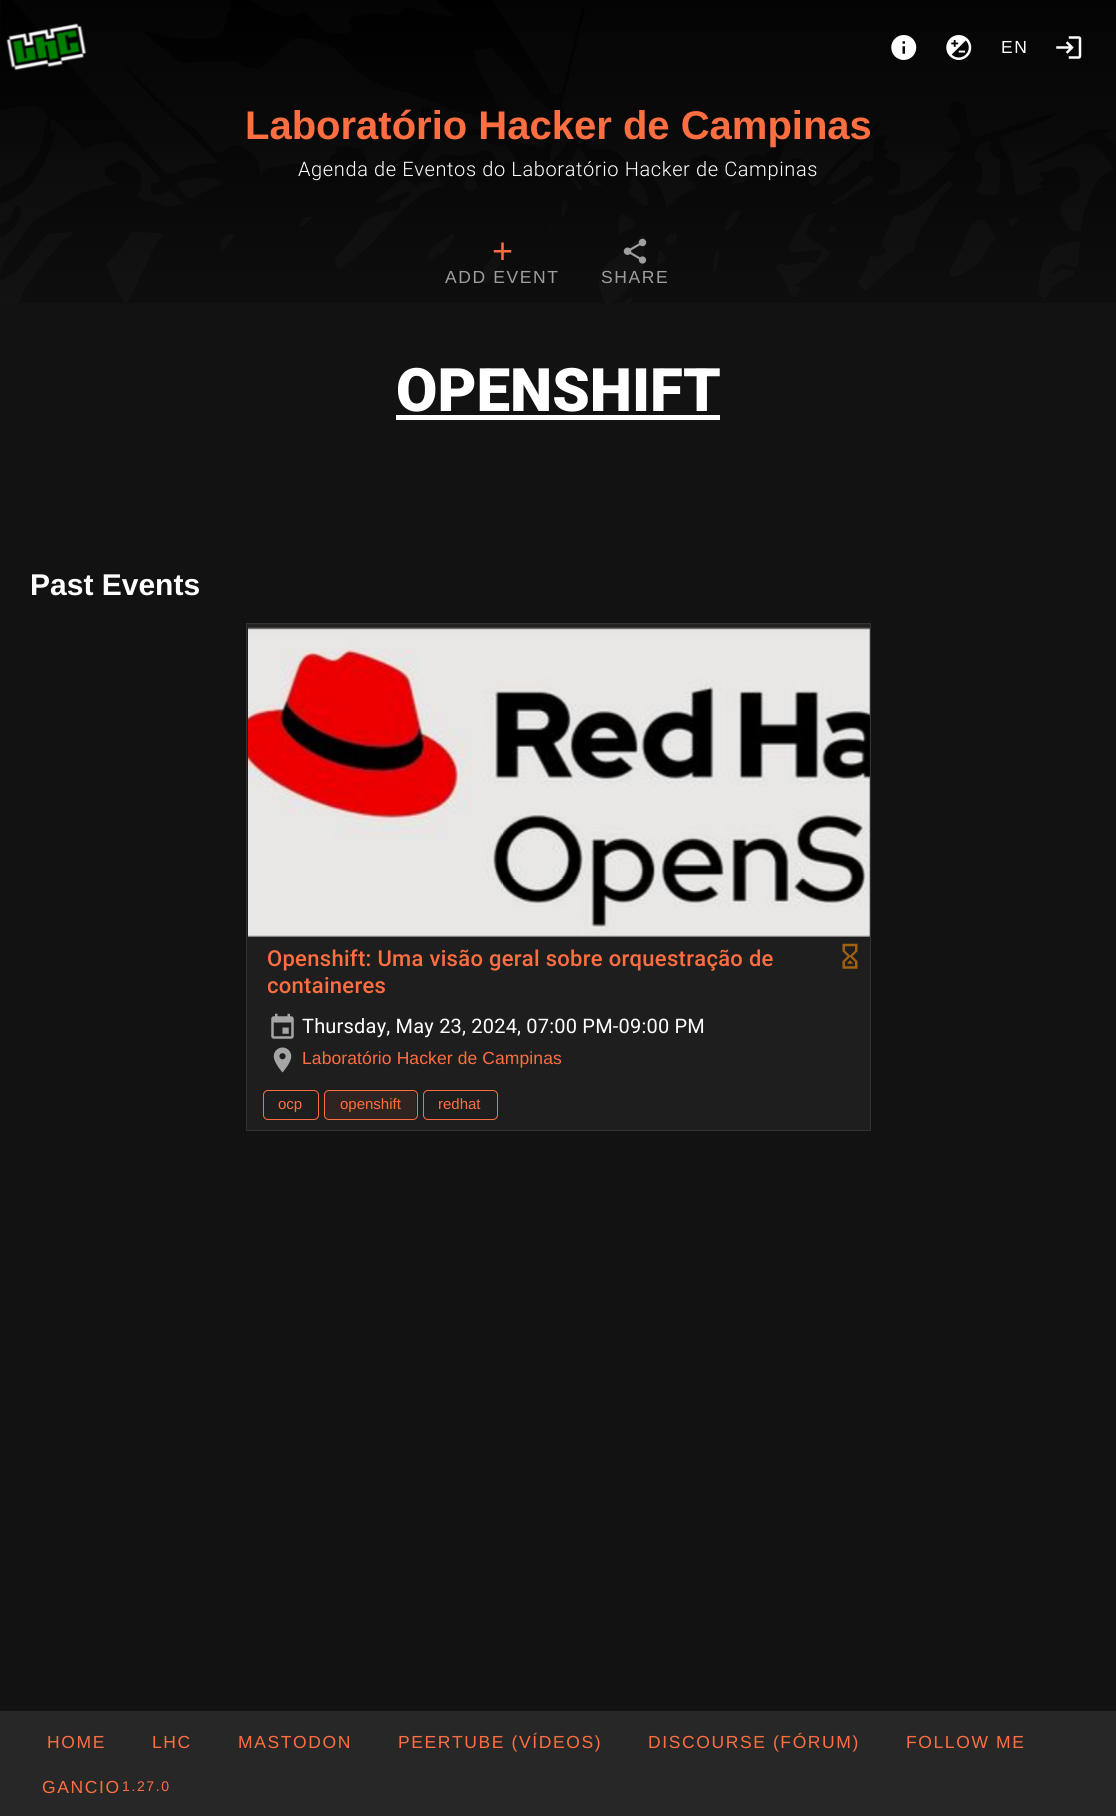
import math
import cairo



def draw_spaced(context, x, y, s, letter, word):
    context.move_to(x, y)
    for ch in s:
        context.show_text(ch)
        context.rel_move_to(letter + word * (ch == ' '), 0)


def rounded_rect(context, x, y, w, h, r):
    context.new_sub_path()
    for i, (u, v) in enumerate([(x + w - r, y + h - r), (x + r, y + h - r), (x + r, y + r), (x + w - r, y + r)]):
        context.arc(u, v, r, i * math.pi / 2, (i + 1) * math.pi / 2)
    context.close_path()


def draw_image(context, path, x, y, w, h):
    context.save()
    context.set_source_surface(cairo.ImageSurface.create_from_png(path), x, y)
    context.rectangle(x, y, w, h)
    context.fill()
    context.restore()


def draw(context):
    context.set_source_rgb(18 / 255, 18 / 255, 18 / 255)
    context.paint()
    draw_image(context, "images/1.png", 0, 0, 1116, 303)
    draw_image(context, "images/2.png", 6, 23, 81, 48)
    draw_image(context, "images/3.png", 891, 35, 26, 25)
    draw_image(context, "images/4.png", 946, 35, 26, 25)
    draw_image(context, "images/5.png", 1056, 36, 26, 23)
    draw_image(context, "images/6.png", 493, 242, 19, 18)
    draw_image(context, "images/7.png", 623, 238, 24, 26)
    context.set_source_rgb(1, 1, 1)
    context.rectangle(396, 415, 324, 5)
    context.fill()
    context.set_source_rgb(30 / 255, 30 / 255, 30 / 255)
    context.rectangle(246.5, 623.5, 624, 507)
    context.fill_preserve()
    context.set_source_rgb(51 / 255, 51 / 255, 51 / 255)
    context.set_line_width(1)
    context.stroke()
    draw_image(context, "images/8.png", 248, 624, 622, 313)
    draw_image(context, "images/9.png", 842, 943, 16, 26)
    draw_image(context, "images/10.png", 271, 1013, 23, 26)
    draw_image(context, "images/11.png", 273, 1047, 19, 26)
    rounded_rect(context, 263.5, 1090.5, 55, 29, 4.5)
    context.set_source_rgb(1, 110 / 255, 64 / 255)
    context.stroke()
    rounded_rect(context, 324.5, 1090.5, 93, 29, 4.5)
    context.stroke()
    context.set_source_rgba(1, 110 / 255, 64 / 255, 0.08)
    rounded_rect(context, 325, 1091, 91, 28, 5)
    context.fill()
    rounded_rect(context, 423.5, 1090.5, 74, 29, 4.5)
    context.set_source_rgb(1, 110 / 255, 64 / 255)
    context.stroke()
    context.set_source_rgb(39 / 255, 39 / 255, 39 / 255)
    context.rectangle(0, 1711, 1116, 105)
    context.fill()
    context.select_font_face("Liberation Sans")
    context.set_font_size(17.5)
    context.set_source_rgb(1, 1, 1)
    draw_spaced(context, 1001, 53, "EN", 1.6, 0)
    context.select_font_face("Liberation Sans", cairo.FontSlant.NORMAL, cairo.FontWeight.BOLD)
    context.set_font_size(40)
    context.set_source_rgb(1, 110 / 255, 64 / 255)
    context.move_to(245, 139)
    context.show_text("Laboratório Hacker de Campinas")
    context.select_font_face("Roboto Light")
    context.set_font_size(20)
    context.set_source_rgb(1, 1, 1)
    draw_spaced(context, 298, 176, "Agenda de Eventos do Laboratório Hacker de Campinas", 0.62, 0)
    context.select_font_face("Liberation Sans")
    context.set_font_size(17.5)
    context.set_source_rgb(158 / 255, 158 / 255, 158 / 255)
    draw_spaced(context, 445, 283, "ADD EVENT", 1.6, 0)
    draw_spaced(context, 601, 283, "SHARE", 1.6, 0)
    context.select_font_face("Roboto Black")
    context.set_font_size(60)
    context.set_source_rgb(1, 1, 1)
    context.move_to(396, 411)
    context.show_text("OPENSHIFT")
    context.select_font_face("Liberation Sans", cairo.FontSlant.NORMAL, cairo.FontWeight.BOLD)
    context.set_font_size(30)
    context.move_to(30, 595)
    context.show_text("Past Events")
    context.select_font_face("Roboto Medium")
    context.set_font_size(22)
    context.set_source_rgb(1, 110 / 255, 64 / 255)
    draw_spaced(context, 267, 966, "Openshift: Uma visão geral sobre orquestração de", 0.3, 0)
    context.save()
    context.rectangle(268, 946, 567, 53)
    context.clip()
    draw_spaced(context, 267, 993, "containeres", 0.3, 0)
    context.restore()
    context.select_font_face("Roboto")
    context.set_font_size(20)
    context.set_source_rgb(1, 1, 1)
    draw_spaced(context, 302, 1033, "Thursday, May 23, 2024, 07:00 PM-09:00 PM", 0.2, 0)
    context.select_font_face("Liberation Sans")
    context.set_font_size(17.5)
    context.set_source_rgb(1, 110 / 255, 64 / 255)
    draw_spaced(context, 302, 1064, "Laboratório Hacker de Campinas", 0.1, 0)
    context.set_font_size(15)
    context.move_to(278, 1109)
    context.show_text("ocp")
    context.move_to(340, 1109)
    context.show_text("openshift")
    context.move_to(438, 1109)
    context.show_text("redhat")
    context.set_font_size(17.5)
    draw_spaced(context, 47, 1748, "HOME", 1.6, 0)
    draw_spaced(context, 152, 1748, "LHC", 1.6, 0)
    draw_spaced(context, 238, 1748, "MASTODON", 1.6, 0)
    draw_spaced(context, 398, 1748, "PEERTUBE (VÍDEOS)", 1.6, 0)
    draw_spaced(context, 648, 1748, "DISCOURSE (FÓRUM)", 1.6, 0)
    draw_spaced(context, 906, 1748, "FOLLOW ME", 1.6, 0)
    draw_spaced(context, 42, 1793, "GANCIO", 1.6, 0)
    context.set_font_size(14)
    draw_spaced(context, 122, 1791, "1.27.0", 1.6, 0)


surface = cairo.ImageSurface(cairo.Format.RGB24, 1116, 1816)
context = cairo.Context(surface)
options = cairo.FontOptions()
options.set_hint_metrics(cairo.HintMetrics.OFF)
options.set_hint_style(cairo.HintStyle.NONE)
context.set_font_options(options)
context.set_miter_limit(4)
draw(context)
surface.write_to_png("out.png")
